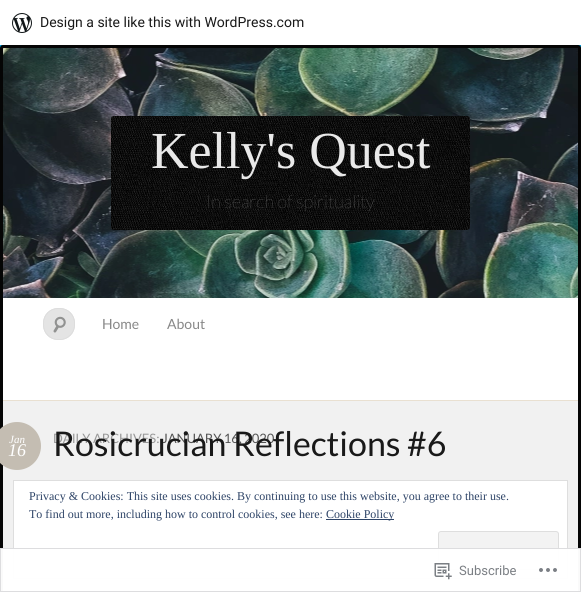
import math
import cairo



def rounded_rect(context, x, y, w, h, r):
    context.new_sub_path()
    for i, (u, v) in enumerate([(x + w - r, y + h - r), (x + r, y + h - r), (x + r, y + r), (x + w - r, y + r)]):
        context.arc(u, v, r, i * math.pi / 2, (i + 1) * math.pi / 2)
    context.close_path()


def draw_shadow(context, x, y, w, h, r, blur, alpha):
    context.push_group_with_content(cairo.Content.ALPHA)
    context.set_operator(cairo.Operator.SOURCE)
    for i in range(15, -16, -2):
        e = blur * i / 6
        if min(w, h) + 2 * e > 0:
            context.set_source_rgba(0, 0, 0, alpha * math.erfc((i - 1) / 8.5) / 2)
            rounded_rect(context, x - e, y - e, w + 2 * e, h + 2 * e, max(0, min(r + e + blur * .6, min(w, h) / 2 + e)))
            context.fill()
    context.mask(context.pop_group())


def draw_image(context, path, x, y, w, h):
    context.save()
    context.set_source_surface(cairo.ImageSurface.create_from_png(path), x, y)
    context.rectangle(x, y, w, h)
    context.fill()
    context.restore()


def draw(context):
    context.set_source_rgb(0, 173 / 255, 239 / 255)
    context.paint()
    context.set_source_rgb(241 / 255, 241 / 255, 241 / 255)
    rounded_rect(context, 1.5, 46.5, 578, 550, 1.5)
    context.fill_preserve()
    context.set_source_rgb(5 / 255, 5 / 255, 5 / 255)
    context.set_line_width(3)
    context.stroke()
    draw_image(context, "images/2.png", 3, 48, 575, 250)
    context.set_source_rgb(0, 0, 0)
    draw_shadow(context, 0, 1, 581, 45, 0, 1, 0.05)
    context.set_source_rgba(0, 0, 0, 0.08)
    context.new_path()
    context.move_to(1, 45)
    context.line_to(1, 48)
    context.line_to(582, 48)
    context.line_to(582, 3)
    context.line_to(581, 3)
    context.line_to(581, 45)
    context.close_path()
    context.fill()
    context.set_source_rgb(1, 1, 1)
    context.rectangle(0, 0, 581, 45)
    context.fill()
    draw_image(context, "images/1.png", 12, 13, 20, 20)
    draw_image(context, "images/3.png", 111, 116, 359, 114)
    context.rectangle(3, 298, 575, 102)
    context.fill()
    context.set_source_rgb(233 / 255, 224 / 255, 209 / 255)
    context.rectangle(3, 400, 575, 1)
    context.fill()
    context.set_source_rgb(228 / 255, 228 / 255, 228 / 255)
    rounded_rect(context, 43, 308, 32, 32, 15)
    context.fill()
    draw_image(context, "images/4.png", 53, 316, 13, 17)
    rounded_rect(context, 43.5, 308.5, 31, 31, 14.5)
    context.set_source_rgb(221 / 255, 221 / 255, 221 / 255)
    context.set_line_width(1)
    context.stroke()
    context.set_source_rgb(196 / 255, 189 / 255, 178 / 255)
    context.arc(17, 446, 24, 0, 2 * math.pi)
    context.fill()
    context.set_source_rgb(1, 1, 1)
    context.rectangle(13.5, 480.5, 554, 98)
    context.fill_preserve()
    context.set_source_rgb(222 / 255, 222 / 255, 222 / 255)
    context.stroke()
    context.set_source_rgb(46 / 255, 68 / 255, 103 / 255)
    context.rectangle(326, 519, 68, 1)
    context.fill()
    context.set_source_rgb(243 / 255, 243 / 255, 243 / 255)
    rounded_rect(context, 438.5, 531.5, 120, 38, 2.5)
    context.fill_preserve()
    context.set_source_rgb(222 / 255, 222 / 255, 222 / 255)
    context.stroke()
    context.set_source_rgba(1, 1, 1, 0.98)
    context.rectangle(0, 548, 581, 44)
    context.fill()
    context.rectangle(0.5, 548.5, 580, 43)
    context.set_source_rgba(220 / 255, 220 / 255, 222 / 255, 0.98)
    context.stroke()
    draw_image(context, "images/5.png", 434, 563, 18, 17)
    draw_image(context, "images/6.png", 539, 568, 18, 4)
    context.select_font_face("Roboto")
    context.set_font_size(14)
    context.set_source_rgb(25 / 255, 25 / 255, 25 / 255)
    context.move_to(40, 27)
    context.show_text("Design a site like this with WordPress.com")
    context.select_font_face("Liberation Serif")
    context.set_font_size(52)
    context.set_source_rgb(233 / 255, 233 / 255, 233 / 255)
    context.move_to(151, 168)
    context.show_text("Kelly's Quest")
    context.select_font_face("Lato Thin")
    context.set_font_size(18)
    context.set_source_rgb(143 / 255, 143 / 255, 143 / 255)
    context.move_to(206, 208)
    context.show_text("In search of spirituality")
    context.select_font_face("Lato")
    context.set_font_size(14)
    context.set_source_rgb(136 / 255, 136 / 255, 136 / 255)
    context.move_to(102, 329)
    context.show_text("Home")
    context.move_to(167, 329)
    context.show_text("About")
    context.select_font_face("Liberation Serif", cairo.FontSlant.ITALIC)
    context.set_font_size(11)
    context.set_source_rgb(1, 1, 1)
    context.move_to(9, 443)
    context.show_text("Jan")
    context.set_font_size(18)
    context.move_to(8, 456)
    context.show_text("16")
    context.select_font_face("Lato")
    context.set_font_size(13)
    context.set_source_rgb(153 / 255, 153 / 255, 153 / 255)
    context.move_to(53, 443)
    context.show_text("DAILY ARCHIVES:")
    context.set_source_rgb(85 / 255, 85 / 255, 85 / 255)
    context.move_to(162, 443)
    context.show_text("JANUARY 16, 2020")
    context.set_font_size(34)
    context.set_source_rgb(25 / 255, 25 / 255, 25 / 255)
    context.move_to(53, 456)
    context.show_text("Rosicrucian Reflections #6")
    context.select_font_face("Liberation Serif")
    context.set_font_size(12)
    context.set_source_rgb(46 / 255, 68 / 255, 103 / 255)
    context.move_to(29, 500)
    context.show_text("Privacy & Cookies: This site uses cookies. By continuing to use this website, you agree to their use.")
    context.move_to(29, 518)
    context.show_text("To find out more, including how to control cookies, see here:")
    context.move_to(326, 518)
    context.show_text("Cookie Policy")
    context.select_font_face("Roboto")
    context.set_font_size(13)
    context.set_source_rgb(123 / 255, 127 / 255, 132 / 255)
    context.move_to(459, 575)
    context.show_text("Subscribe")


surface = cairo.ImageSurface(cairo.Format.RGB24, 581, 592)
context = cairo.Context(surface)
options = cairo.FontOptions()
options.set_hint_metrics(cairo.HintMetrics.OFF)
options.set_hint_style(cairo.HintStyle.NONE)
context.set_font_options(options)
context.set_miter_limit(4)
draw(context)
surface.write_to_png("out.png")
